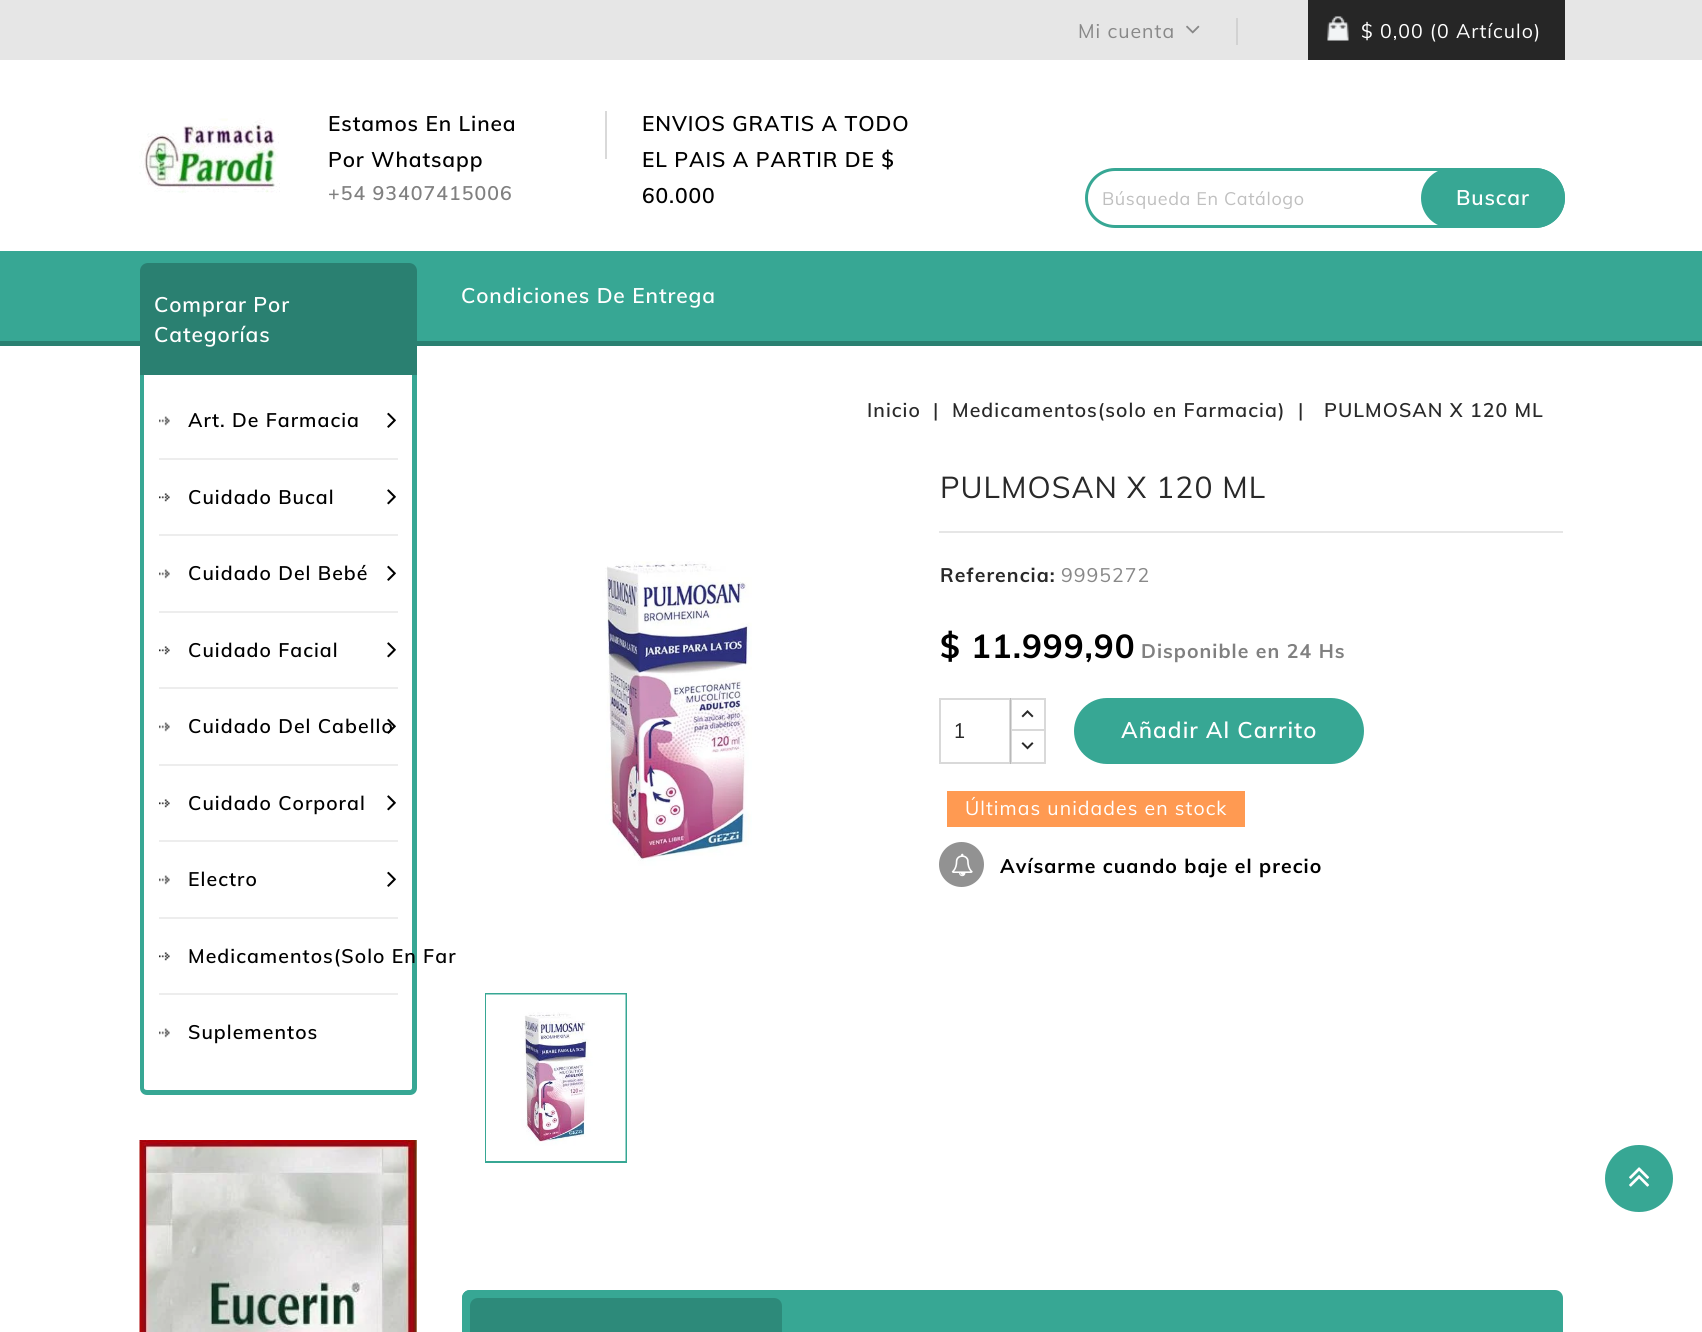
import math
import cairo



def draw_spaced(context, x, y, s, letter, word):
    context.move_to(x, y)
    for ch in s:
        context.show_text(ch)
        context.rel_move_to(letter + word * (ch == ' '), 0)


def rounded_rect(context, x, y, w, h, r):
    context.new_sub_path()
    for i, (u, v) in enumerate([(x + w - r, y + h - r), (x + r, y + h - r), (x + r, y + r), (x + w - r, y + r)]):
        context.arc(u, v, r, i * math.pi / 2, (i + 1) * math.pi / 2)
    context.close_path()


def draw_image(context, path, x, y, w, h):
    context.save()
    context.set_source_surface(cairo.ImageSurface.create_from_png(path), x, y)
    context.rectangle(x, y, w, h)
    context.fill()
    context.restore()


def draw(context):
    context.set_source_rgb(1, 1, 1)
    context.paint()
    context.set_source_rgb(230 / 255, 230 / 255, 230 / 255)
    context.rectangle(0, 0, 1702, 60)
    context.fill()
    draw_image(context, "images/1.png", 1186, 25, 14, 9)
    context.set_source_rgb(210 / 255, 210 / 255, 210 / 255)
    context.rectangle(1236, 18, 2, 27)
    context.fill()
    context.set_source_rgb(38 / 255, 38 / 255, 38 / 255)
    context.rectangle(1308, 0, 257, 60)
    context.fill()
    draw_image(context, "images/2.png", 1327, 16, 22, 25)
    draw_image(context, "images/3.png", 139, 118, 141, 76)
    context.set_source_rgb(217 / 255, 217 / 255, 217 / 255)
    context.rectangle(605, 111, 2, 48)
    context.fill()
    rounded_rect(context, 1086.5, 169.5, 477, 57, 28.5)
    context.set_source_rgb(55 / 255, 167 / 255, 148 / 255)
    context.set_line_width(3)
    context.stroke()
    rounded_rect(context, 1421, 168, 144, 60, 30)
    context.fill()
    context.rectangle(0, 251, 1702, 90)
    context.fill()
    context.set_source_rgb(42 / 255, 128 / 255, 113 / 255)
    context.rectangle(0, 341, 1702, 5)
    context.fill()
    context.new_path()
    context.move_to(148, 263)
    context.line_to(409, 263)
    context.curve_to(413.5, 263, 417, 266.5, 417, 271)
    context.line_to(417, 375)
    context.line_to(140, 375)
    context.line_to(140, 271)
    context.curve_to(140, 266.5, 143.5, 263, 148, 263)
    context.close_path()
    context.fill()
    context.set_source_rgb(55 / 255, 167 / 255, 148 / 255)
    context.set_fill_rule(cairo.FillRule.EVEN_ODD)
    context.new_path()
    context.move_to(140, 375)
    context.line_to(417, 375)
    context.line_to(417, 1088)
    context.curve_to(417, 1092, 414, 1095, 410, 1095)
    context.line_to(147, 1095)
    context.curve_to(143, 1095, 140, 1092, 140, 1088)
    context.close_path()
    context.move_to(144, 375)
    context.line_to(412, 375)
    context.line_to(412, 1088)
    context.curve_to(412, 1089, 411, 1090, 410, 1090)
    context.line_to(147, 1090)
    context.curve_to(145, 1090, 144, 1089, 144, 1088)
    context.close_path()
    context.fill()
    draw_image(context, "images/4.png", 159, 416, 11, 10)
    context.set_source_rgb(237 / 255, 237 / 255, 237 / 255)
    context.rectangle(159, 458, 239, 2)
    context.fill()
    draw_image(context, "images/5.png", 387, 412, 9, 16)
    draw_image(context, "images/6.png", 159, 493, 11, 9)
    context.rectangle(159, 534, 239, 2)
    context.fill()
    draw_image(context, "images/7.png", 387, 489, 9, 16)
    draw_image(context, "images/4.png", 159, 569, 11, 10)
    context.rectangle(159, 611, 239, 2)
    context.fill()
    draw_image(context, "images/5.png", 387, 565, 9, 16)
    draw_image(context, "images/6.png", 159, 646, 11, 9)
    context.rectangle(159, 687, 239, 2)
    context.fill()
    draw_image(context, "images/7.png", 387, 642, 9, 16)
    draw_image(context, "images/4.png", 159, 722, 11, 10)
    context.rectangle(159, 764, 239, 2)
    context.fill()
    draw_image(context, "images/5.png", 387, 718, 9, 16)
    draw_image(context, "images/6.png", 159, 799, 11, 9)
    context.rectangle(159, 840, 239, 2)
    context.fill()
    draw_image(context, "images/7.png", 387, 795, 9, 16)
    draw_image(context, "images/4.png", 159, 875, 11, 10)
    context.rectangle(159, 917, 239, 2)
    context.fill()
    draw_image(context, "images/5.png", 387, 871, 9, 16)
    draw_image(context, "images/6.png", 159, 952, 11, 9)
    context.rectangle(159, 993, 239, 2)
    context.fill()
    draw_image(context, "images/4.png", 159, 1028, 11, 10)
    draw_image(context, "images/8.png", 139, 1140, 278, 192)
    draw_image(context, "images/9.png", 463, 561, 289, 394)
    context.rectangle(486, 994, 140, 168)
    context.set_source_rgb(55 / 255, 167 / 255, 148 / 255)
    context.set_line_width(2)
    context.stroke()
    draw_image(context, "images/10.png", 486, 994, 140, 167)
    context.set_source_rgb(230 / 255, 230 / 255, 230 / 255)
    context.rectangle(939, 531, 624, 2)
    context.fill()
    context.rectangle(1011, 699, 34, 32)
    context.set_source_rgb(217 / 255, 217 / 255, 217 / 255)
    context.stroke()
    context.set_source_rgb(1, 1, 1)
    context.rectangle(1012, 731, 32, 1)
    context.fill()
    context.rectangle(1011, 730, 34, 33)
    context.set_source_rgb(217 / 255, 217 / 255, 217 / 255)
    context.stroke()
    context.rectangle(940, 699, 70, 64)
    context.set_source_rgba(0, 0, 0, 0.15)
    context.stroke()
    draw_image(context, "images/11.png", 1021, 710, 13, 8)
    draw_image(context, "images/12.png", 1021, 742, 13, 8)
    context.set_source_rgb(55 / 255, 167 / 255, 148 / 255)
    rounded_rect(context, 1075, 699, 288, 64, 32)
    context.fill_preserve()
    context.stroke()
    context.set_source_rgb(1, 154 / 255, 82 / 255)
    context.rectangle(947, 791, 298, 36)
    context.fill()
    context.set_source_rgb(146 / 255, 146 / 255, 146 / 255)
    context.arc(961.5, 864.5, 22.5, 0, 2 * math.pi)
    context.fill()
    draw_image(context, "images/13.png", 951, 853, 22, 24)
    context.set_source_rgb(55 / 255, 167 / 255, 148 / 255)
    rounded_rect(context, 462, 1290, 1101, 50, 8)
    context.fill()
    rounded_rect(context, 462, 1290, 320, 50, 8)
    context.fill()
    context.set_source_rgb(45 / 255, 138 / 255, 122 / 255)
    context.new_path()
    context.move_to(478, 1298)
    context.line_to(774, 1298)
    context.curve_to(778.5, 1298, 782, 1301.5, 782, 1306)
    context.line_to(782, 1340)
    context.line_to(470, 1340)
    context.line_to(470, 1306)
    context.curve_to(470, 1301.5, 473.5, 1298, 478, 1298)
    context.close_path()
    context.fill()
    context.set_source_rgb(55 / 255, 167 / 255, 148 / 255)
    rounded_rect(context, 1605, 1145, 68, 67, 33.5)
    context.fill()
    draw_image(context, "images/14.png", 1629, 1167, 21, 20)
    context.select_font_face("Muli")
    context.set_font_size(19.5)
    context.set_source_rgb(136 / 255, 136 / 255, 136 / 255)
    draw_spaced(context, 1078, 38, "Mi cuenta", 1.05, 0)
    context.set_source_rgb(1, 1, 1)
    draw_spaced(context, 1361, 38, "$ 0,00 (0 Artículo)", 1.05, 0)
    context.select_font_face("Muli SemiBold")
    context.set_font_size(21)
    context.set_source_rgb(0, 0, 0)
    draw_spaced(context, 328, 131, "Estamos En Linea", 0.9, 0)
    draw_spaced(context, 328, 167, "Por Whatsapp", 0.9, 0)
    context.set_font_size(19.5)
    context.set_source_rgb(128 / 255, 128 / 255, 128 / 255)
    draw_spaced(context, 328, 200, "+54 93407415006", 1.05, 0)
    context.set_font_size(21)
    context.set_source_rgb(0, 0, 0)
    draw_spaced(context, 642, 131, "ENVIOS GRATIS A TODO", 0.9, 0)
    draw_spaced(context, 642, 167, "EL PAIS A PARTIR DE $", 0.9, 0)
    draw_spaced(context, 642, 203, "60.000", 0.9, 0)
    context.select_font_face("Muli")
    context.set_font_size(18)
    context.set_source_rgb(191 / 255, 191 / 255, 191 / 255)
    draw_spaced(context, 1102, 205, "Búsqueda En Catálogo", 0.6, 0)
    context.select_font_face("Muli SemiBold")
    context.set_font_size(21)
    context.set_source_rgb(1, 1, 1)
    draw_spaced(context, 1456, 205, "Buscar", 0.9, 0)
    draw_spaced(context, 461, 303, "Condiciones De Entrega", 0.9, 0)
    draw_spaced(context, 154, 312, "Comprar Por", 0.9, 0)
    draw_spaced(context, 154, 342, "Categorías", 0.9, 0)
    context.set_font_size(19.5)
    context.set_source_rgb(0, 0, 0)
    draw_spaced(context, 188, 427, "Art. De Farmacia", 1.05, 0)
    draw_spaced(context, 188, 504, "Cuidado Bucal", 1.05, 0)
    draw_spaced(context, 188, 580, "Cuidado Del Bebé", 1.05, 0)
    draw_spaced(context, 188, 657, "Cuidado Facial", 1.05, 0)
    draw_spaced(context, 188, 733, "Cuidado Del Cabello", 1.05, 0)
    draw_spaced(context, 188, 810, "Cuidado Corporal", 1.05, 0)
    draw_spaced(context, 188, 886, "Electro", 1.05, 0)
    draw_spaced(context, 188, 963, "Medicamentos(Solo En Far", 1.05, 0)
    draw_spaced(context, 188, 1039, "Suplementos", 1.05, 0)
    context.set_source_rgb(41 / 255, 41 / 255, 41 / 255)
    draw_spaced(context, 867, 417, "Inicio", 1.05, 0)
    draw_spaced(context, 933, 417, "|", 1.05, 0)
    draw_spaced(context, 952, 417, "Medicamentos(solo en Farmacia)", 1.05, 0)
    draw_spaced(context, 1298, 417, "|", 1.05, 0)
    draw_spaced(context, 1324, 417, "PULMOSAN X 120 ML", 1.05, 0)
    context.select_font_face("Muli")
    context.set_font_size(30)
    draw_spaced(context, 940, 498, "PULMOSAN X 120 ML", 1.05, 0)
    context.select_font_face("Muli", cairo.FontSlant.NORMAL, cairo.FontWeight.BOLD)
    context.set_font_size(19.5)
    draw_spaced(context, 940, 582, "Referencia:", 1.05, 0)
    context.select_font_face("Muli")
    context.set_source_rgb(136 / 255, 136 / 255, 136 / 255)
    draw_spaced(context, 1061, 582, "9995272", 1.05, 0)
    context.select_font_face("Muli", cairo.FontSlant.NORMAL, cairo.FontWeight.BOLD)
    context.set_font_size(33)
    context.set_source_rgb(0, 0, 0)
    draw_spaced(context, 940, 658, "$ 11.999,90", 1.05, 0)
    context.set_font_size(19.5)
    context.set_source_rgb(128 / 255, 128 / 255, 128 / 255)
    draw_spaced(context, 1141, 658, "Disponible en 24 Hs", 1.05, 0)
    context.select_font_face("Muli")
    context.set_font_size(21)
    context.set_source_rgb(41 / 255, 41 / 255, 41 / 255)
    context.move_to(953, 738)
    context.show_text("1")
    context.select_font_face("Muli SemiBold")
    context.set_font_size(22.5)
    context.set_source_rgb(1, 1, 1)
    draw_spaced(context, 1121, 738, "Añadir Al Carrito", 1.05, 0)
    context.select_font_face("Muli")
    context.set_font_size(19.5)
    draw_spaced(context, 965, 815, "Últimas unidades en stock", 1.05, 0)
    context.select_font_face("Muli", cairo.FontSlant.NORMAL, cairo.FontWeight.BOLD)
    context.set_source_rgb(0, 0, 0)
    draw_spaced(context, 1000, 873, "Avísarme cuando baje el precio", 1.05, 0)


surface = cairo.ImageSurface(cairo.Format.RGB24, 1702, 1332)
context = cairo.Context(surface)
options = cairo.FontOptions()
options.set_hint_metrics(cairo.HintMetrics.OFF)
options.set_hint_style(cairo.HintStyle.NONE)
context.set_font_options(options)
context.set_miter_limit(4)
draw(context)
surface.write_to_png("out.png")
